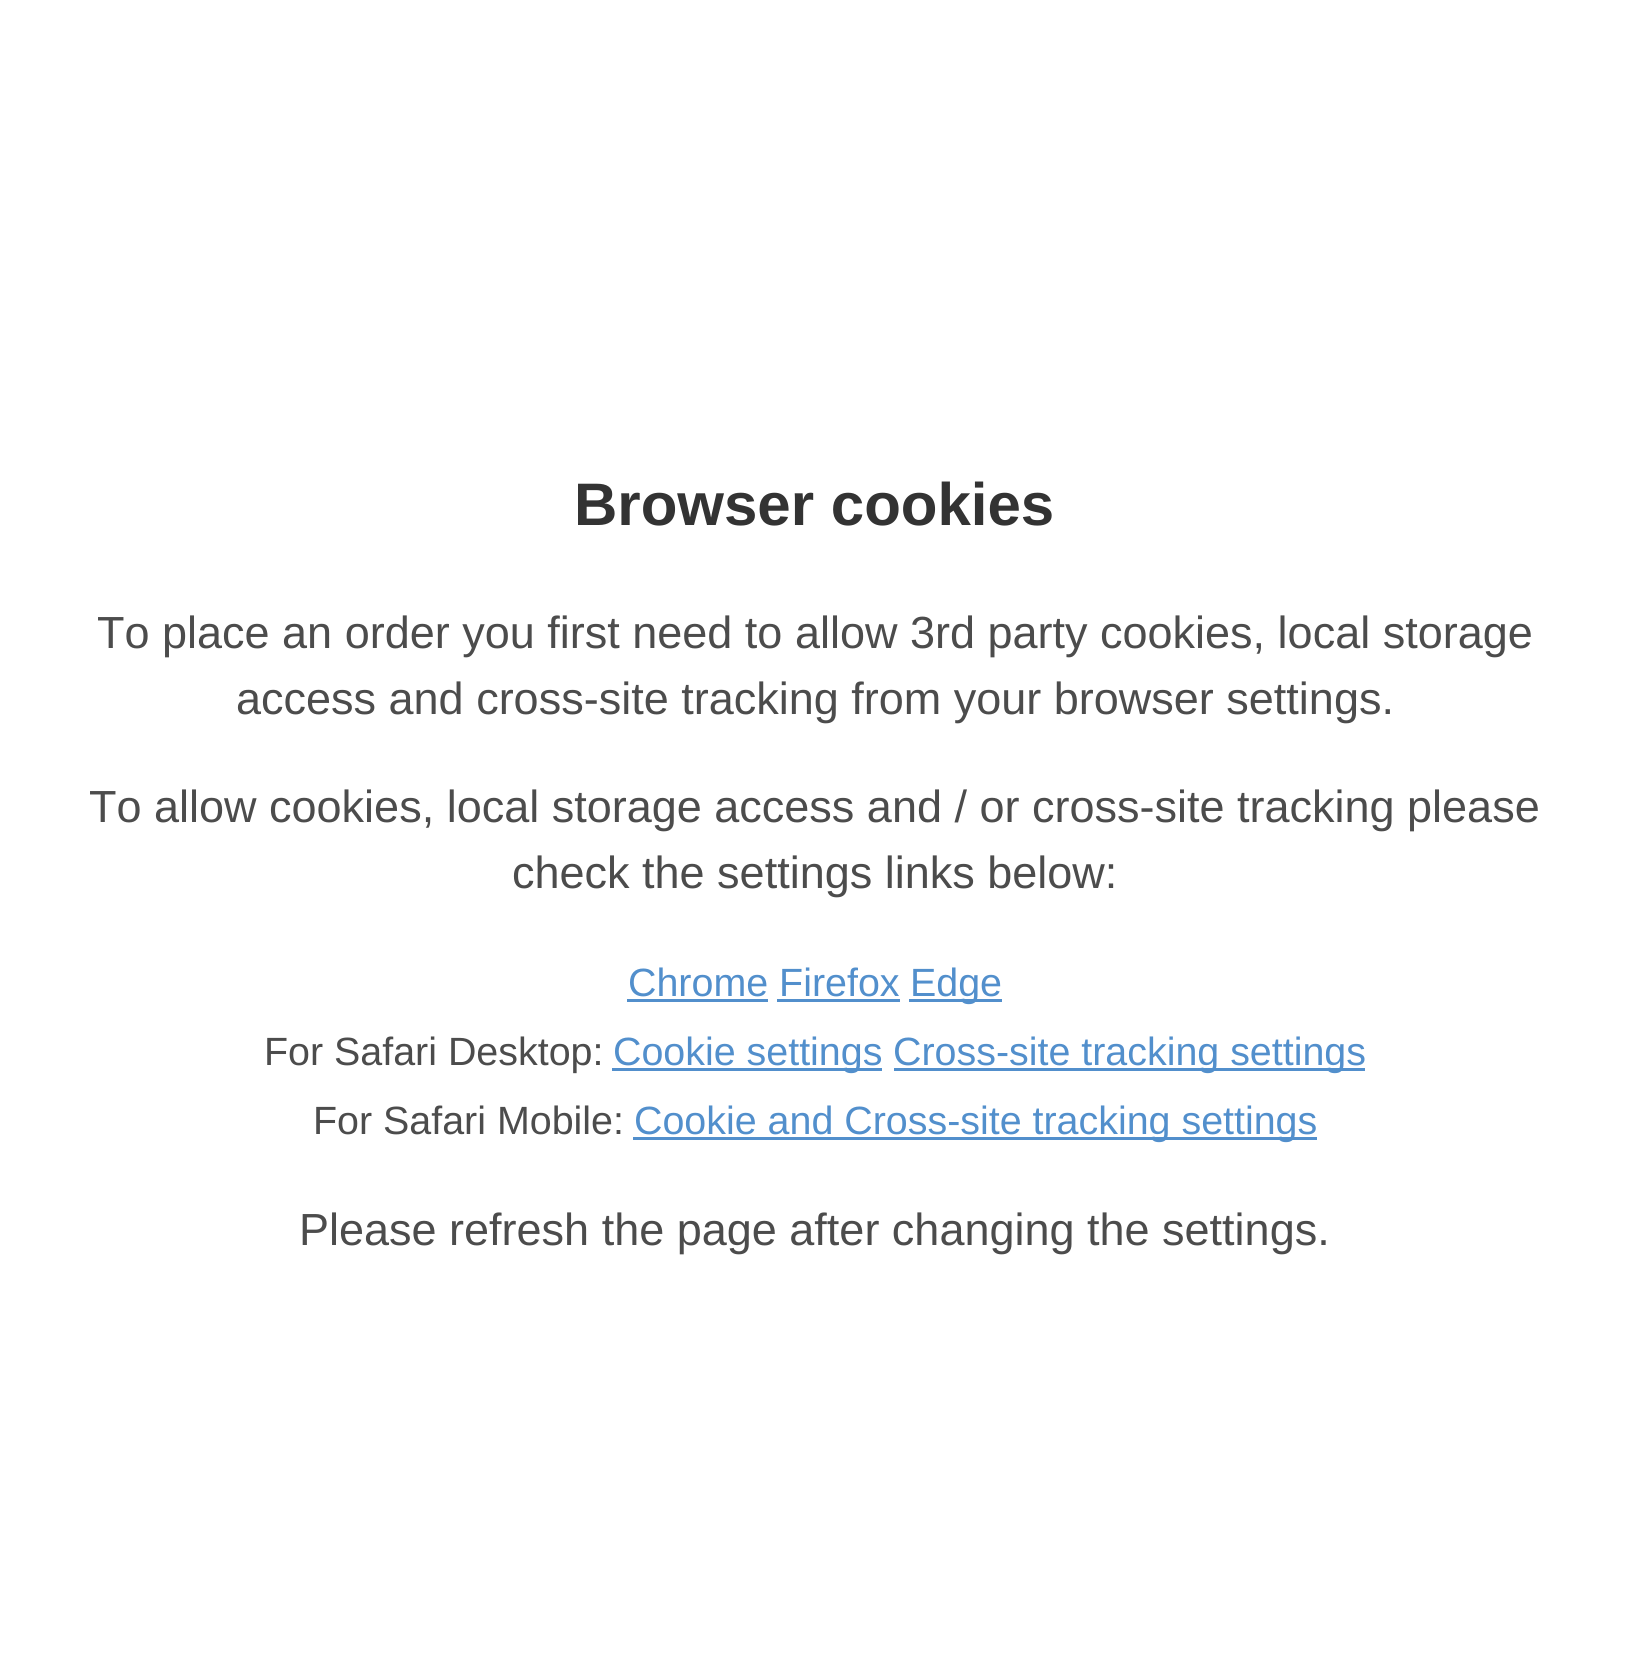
import math
import cairo



def draw(context):
    context.set_source_rgb(1, 1, 1)
    context.paint()
    context.set_source_rgb(82 / 255, 143 / 255, 204 / 255)
    context.rectangle(627, 999, 141, 3)
    context.fill()
    context.rectangle(777, 999, 123, 3)
    context.fill()
    context.rectangle(909, 999, 93, 3)
    context.fill()
    context.rectangle(612, 1068, 270, 3)
    context.fill()
    context.rectangle(894, 1068, 471, 3)
    context.fill()
    context.rectangle(633, 1137, 684, 3)
    context.fill()
    context.select_font_face("Liberation Sans", cairo.FontSlant.NORMAL, cairo.FontWeight.BOLD)
    context.set_font_size(60)
    context.set_source_rgb(51 / 255, 51 / 255, 51 / 255)
    context.move_to(574, 525)
    context.show_text("Browser cookies")
    context.select_font_face("Liberation Sans")
    context.set_font_size(45)
    context.set_source_rgb(76 / 255, 76 / 255, 76 / 255)
    context.move_to(97, 648)
    context.show_text("To place an order you first need to allow 3rd party cookies, local storage")
    context.move_to(236, 714)
    context.show_text("access and cross-site tracking from your browser settings.")
    context.move_to(89, 822)
    context.show_text("To allow cookies, local storage access and / or cross-site tracking please")
    context.move_to(512, 888)
    context.show_text("check the settings links below:")
    context.set_font_size(39.4)
    context.set_source_rgb(82 / 255, 143 / 255, 204 / 255)
    context.move_to(628, 996)
    context.show_text("Chrome Firefox")
    context.move_to(910, 996)
    context.show_text("Edge")
    context.set_source_rgb(76 / 255, 76 / 255, 76 / 255)
    context.move_to(264, 1065)
    context.show_text("For Safari Desktop:")
    context.set_source_rgb(82 / 255, 143 / 255, 204 / 255)
    context.move_to(613, 1065)
    context.show_text("Cookie settings")
    context.move_to(893, 1065)
    context.show_text("Cross-site tracking settings")
    context.set_source_rgb(76 / 255, 76 / 255, 76 / 255)
    context.move_to(313, 1134)
    context.show_text("For Safari Mobile:")
    context.set_source_rgb(82 / 255, 143 / 255, 204 / 255)
    context.move_to(634, 1134)
    context.show_text("Cookie and Cross-site tracking settings")
    context.set_font_size(45)
    context.set_source_rgb(76 / 255, 76 / 255, 76 / 255)
    context.move_to(299, 1245)
    context.show_text("Please refresh the page after changing the settings.")


surface = cairo.ImageSurface(cairo.Format.RGB24, 1629, 1671)
context = cairo.Context(surface)
options = cairo.FontOptions()
options.set_hint_metrics(cairo.HintMetrics.OFF)
options.set_hint_style(cairo.HintStyle.NONE)
context.set_font_options(options)
context.set_miter_limit(4)
draw(context)
surface.write_to_png("out.png")
